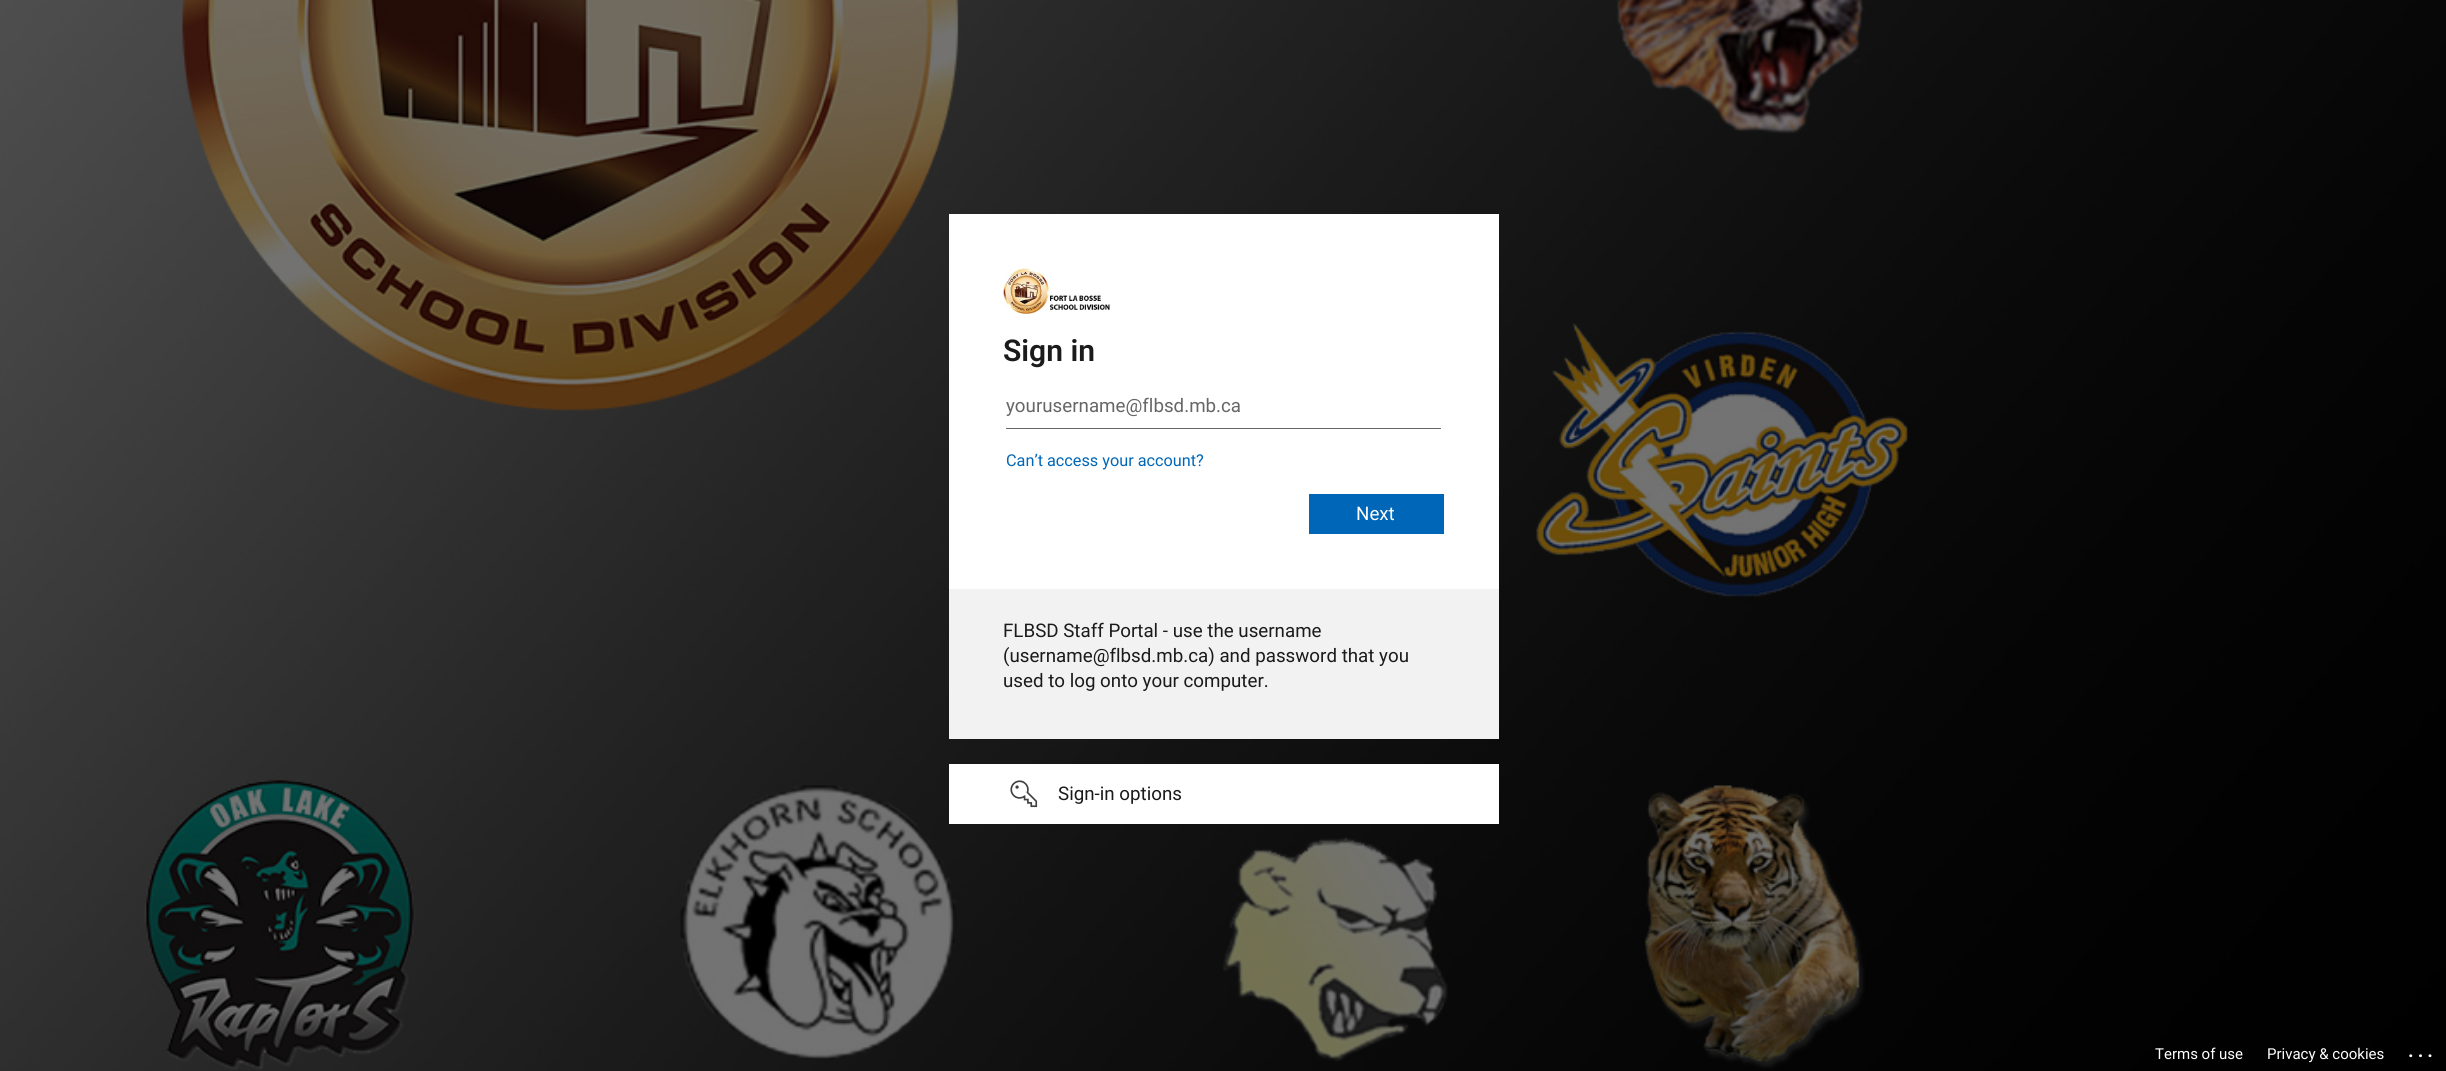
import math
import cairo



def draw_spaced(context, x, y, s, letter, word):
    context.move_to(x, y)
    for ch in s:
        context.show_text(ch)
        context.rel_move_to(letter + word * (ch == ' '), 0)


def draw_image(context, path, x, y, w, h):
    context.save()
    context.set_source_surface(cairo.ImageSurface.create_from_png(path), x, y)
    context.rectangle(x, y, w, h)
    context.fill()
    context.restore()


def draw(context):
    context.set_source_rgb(1, 1, 1)
    context.paint()
    draw_image(context, "images/1.png", 0, 0, 2446, 1071)
    context.set_source_rgb(1, 1, 1)
    context.rectangle(949, 214, 550, 375)
    context.fill()
    draw_image(context, "images/2.png", 1003, 268, 107, 46)
    context.set_source_rgb(102 / 255, 102 / 255, 102 / 255)
    context.rectangle(1006, 428, 435, 1)
    context.fill()
    context.set_source_rgb(0, 103 / 255, 184 / 255)
    context.rectangle(1309, 494, 135, 40)
    context.fill()
    context.set_source_rgb(242 / 255, 242 / 255, 242 / 255)
    context.rectangle(949, 589, 550, 150)
    context.fill()
    context.set_source_rgb(1, 1, 1)
    context.rectangle(949, 764, 550, 60)
    context.fill()
    draw_image(context, "images/3.png", 1010, 780, 28, 28)
    context.select_font_face("Roboto SemiBold")
    context.set_font_size(30)
    context.set_source_rgb(27 / 255, 27 / 255, 27 / 255)
    context.move_to(1003, 361)
    context.show_text("Sign in")
    context.select_font_face("Roboto")
    context.set_font_size(18.75)
    context.set_source_rgb(102 / 255, 102 / 255, 102 / 255)
    context.move_to(1006, 412)
    context.show_text("yourusername@flbsd.mb.ca")
    context.set_font_size(16.25)
    context.set_source_rgb(0, 103 / 255, 184 / 255)
    context.move_to(1006, 466)
    context.show_text("Can’t access your account?")
    context.set_font_size(18.75)
    context.set_source_rgb(1, 1, 1)
    context.move_to(1356, 520)
    context.show_text("Next")
    context.set_source_rgb(27 / 255, 27 / 255, 27 / 255)
    context.move_to(1003, 637)
    context.show_text("FLBSD Staff Portal - use the username")
    context.move_to(1003, 662)
    context.show_text("(username@flbsd.mb.ca) and password that you")
    context.move_to(1003, 687)
    context.show_text("used to log onto your computer.")
    context.move_to(1058, 800)
    context.show_text("Sign-in options")
    context.set_font_size(15)
    context.set_source_rgb(1, 1, 1)
    context.move_to(2155, 1059)
    context.show_text("Terms of use")
    context.move_to(2267, 1059)
    context.show_text("Privacy & cookies")
    context.select_font_face("Roboto SemiBold")
    context.set_font_size(20)
    draw_spaced(context, 2408, 1057, "...", 4, 0)


surface = cairo.ImageSurface(cairo.Format.RGB24, 2446, 1071)
context = cairo.Context(surface)
options = cairo.FontOptions()
options.set_hint_metrics(cairo.HintMetrics.OFF)
options.set_hint_style(cairo.HintStyle.NONE)
context.set_font_options(options)
context.set_miter_limit(4)
draw(context)
surface.write_to_png("out.png")
